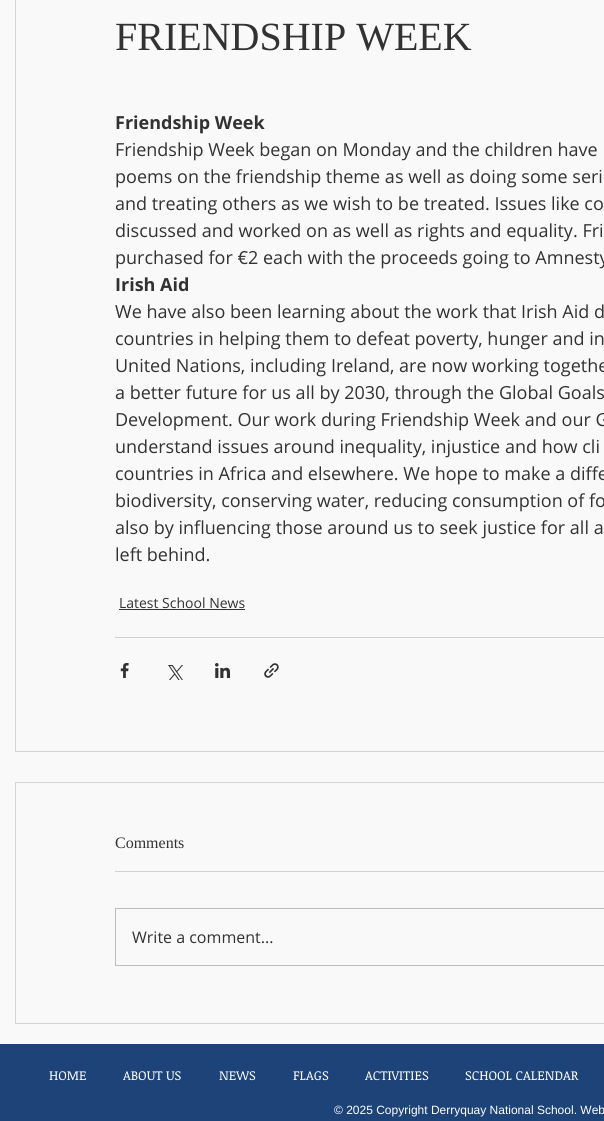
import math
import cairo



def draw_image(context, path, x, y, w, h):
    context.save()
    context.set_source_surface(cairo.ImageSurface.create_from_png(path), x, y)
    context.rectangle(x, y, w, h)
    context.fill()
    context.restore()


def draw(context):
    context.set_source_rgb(249 / 255, 249 / 255, 249 / 255)
    context.paint()
    context.rectangle(15.5, -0.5, 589, 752)
    context.set_source_rgb(211 / 255, 211 / 255, 211 / 255)
    context.set_line_width(1)
    context.stroke()
    context.set_source_rgb(50 / 255, 50 / 255, 50 / 255)
    context.rectangle(119, 609, 126, 1)
    context.fill()
    context.set_source_rgb(209 / 255, 209 / 255, 209 / 255)
    context.rectangle(115, 637, 489, 1)
    context.fill()
    draw_image(context, "images/1.png", 120, 663, 9, 15)
    draw_image(context, "images/2.png", 168, 665, 15, 15)
    draw_image(context, "images/3.png", 215, 663, 15, 15)
    draw_image(context, "images/4.png", 264, 663, 15, 15)
    context.rectangle(15.5, 782.5, 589, 241)
    context.set_source_rgb(211 / 255, 211 / 255, 211 / 255)
    context.stroke()
    context.set_source_rgb(209 / 255, 209 / 255, 209 / 255)
    context.rectangle(115, 871, 489, 1)
    context.fill()
    context.rectangle(115.5, 908.5, 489, 57)
    context.set_source_rgb(189 / 255, 189 / 255, 189 / 255)
    context.stroke()
    context.set_source_rgb(29 / 255, 67 / 255, 121 / 255)
    context.rectangle(0, 1044, 604, 77)
    context.fill()
    context.select_font_face("Liberation Serif")
    context.set_font_size(40)
    context.set_source_rgb(50 / 255, 50 / 255, 50 / 255)
    context.move_to(115, 50)
    context.show_text("FRIENDSHIP WEEK")
    context.select_font_face("Open Sans", cairo.FontSlant.NORMAL, cairo.FontWeight.BOLD)
    context.set_font_size(18)
    context.move_to(115, 129)
    context.show_text("Friendship Week")
    context.select_font_face("Open Sans")
    context.move_to(115, 156)
    context.show_text("Friendship Week began on Monday and the children have")
    context.move_to(115, 183)
    context.show_text("poems on the friendship theme as well as doing some seri")
    context.move_to(115, 210)
    context.show_text("and treating others as we wish to be treated. Issues like co")
    context.move_to(115, 237)
    context.show_text("discussed and worked on as well as rights and equality. Fri")
    context.move_to(115, 264)
    context.show_text("purchased for €2 each with the proceeds going to Amnesty")
    context.select_font_face("Open Sans", cairo.FontSlant.NORMAL, cairo.FontWeight.BOLD)
    context.move_to(115, 291)
    context.show_text("Irish Aid")
    context.select_font_face("Open Sans")
    context.move_to(115, 318)
    context.show_text("We have also been learning about the work that Irish Aid d")
    context.move_to(115, 345)
    context.show_text("countries in helping them to defeat poverty, hunger and in")
    context.move_to(115, 372)
    context.show_text("United Nations, including Ireland, are now working togethe")
    context.move_to(115, 399)
    context.show_text("a better future for us all by 2030, through the Global Goals")
    context.move_to(115, 426)
    context.show_text("Development. Our work during Friendship Week and our G")
    context.move_to(115, 453)
    context.show_text("understand issues around inequality, injustice and how cli")
    context.move_to(115, 480)
    context.show_text("countries in Africa and elsewhere. We hope to make a diffe")
    context.move_to(115, 507)
    context.show_text("biodiversity, conserving water, reducing consumption of fo")
    context.move_to(115, 534)
    context.show_text("also by influencing those around us to seek justice for all a")
    context.move_to(115, 561)
    context.show_text("left behind.")
    context.set_font_size(14)
    context.move_to(119, 608)
    context.show_text("Latest School News")
    context.select_font_face("Liberation Serif")
    context.set_font_size(16)
    context.move_to(115, 848)
    context.show_text("Comments")
    context.select_font_face("Open Sans")
    context.move_to(132, 943)
    context.show_text("Write a comment...")
    context.select_font_face("Noticia Text")
    context.set_font_size(13)
    context.set_source_rgb(1, 1, 1)
    context.move_to(49, 1080)
    context.show_text("HOME")
    context.move_to(123, 1080)
    context.show_text("ABOUT US")
    context.move_to(219, 1080)
    context.show_text("NEWS")
    context.move_to(293, 1080)
    context.show_text("FLAGS")
    context.move_to(365, 1080)
    context.show_text("ACTIVITIES")
    context.move_to(465, 1080)
    context.show_text("SCHOOL CALENDAR")
    context.select_font_face("Liberation Sans")
    context.set_font_size(12)
    context.move_to(334, 1114)
    context.show_text("© 2025 Copyright Derryquay National School. Web")


surface = cairo.ImageSurface(cairo.Format.RGB24, 604, 1121)
context = cairo.Context(surface)
options = cairo.FontOptions()
options.set_hint_metrics(cairo.HintMetrics.OFF)
options.set_hint_style(cairo.HintStyle.NONE)
context.set_font_options(options)
context.set_miter_limit(4)
draw(context)
surface.write_to_png("out.png")
